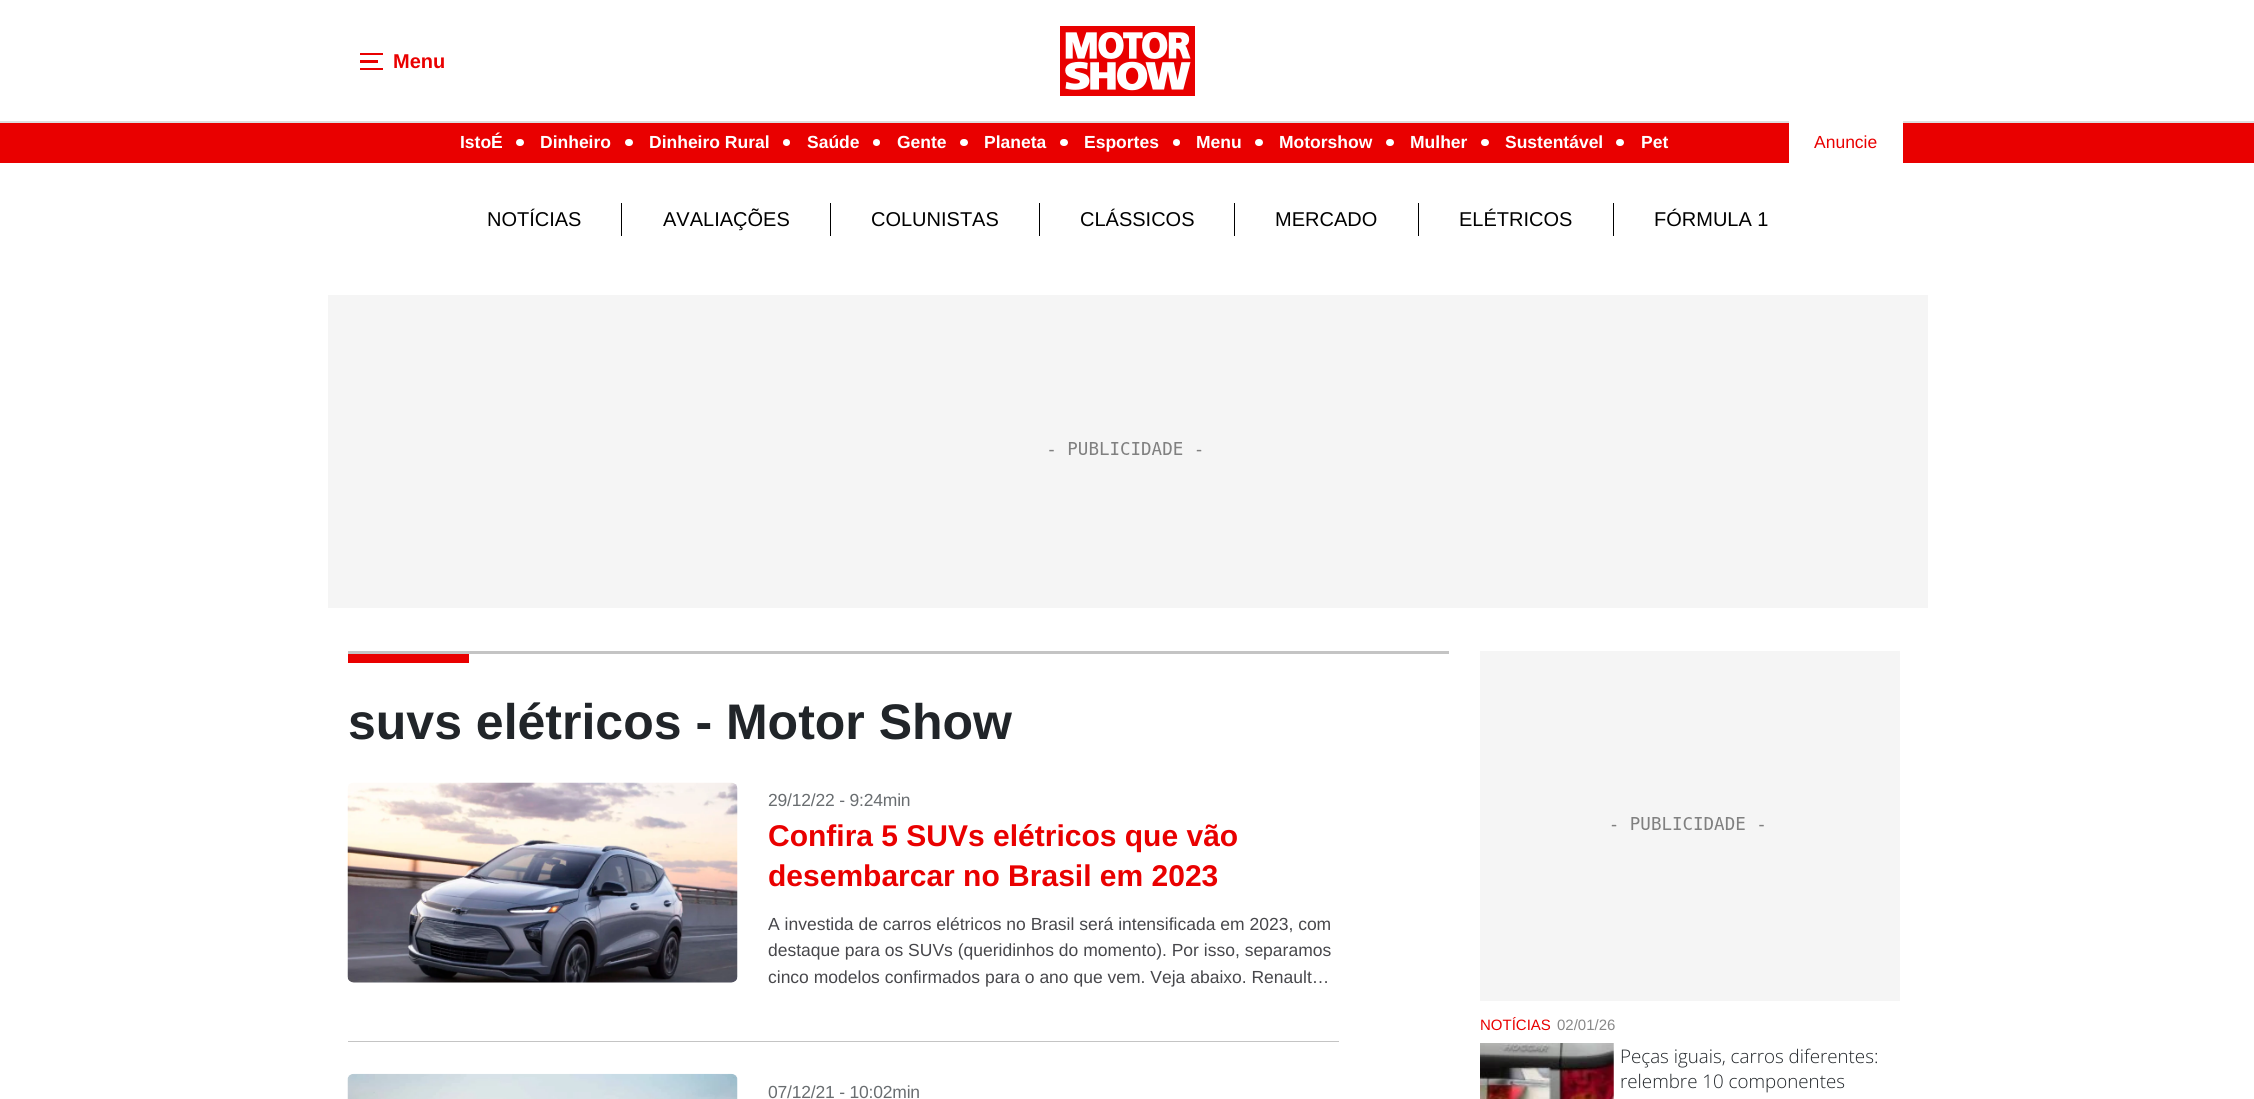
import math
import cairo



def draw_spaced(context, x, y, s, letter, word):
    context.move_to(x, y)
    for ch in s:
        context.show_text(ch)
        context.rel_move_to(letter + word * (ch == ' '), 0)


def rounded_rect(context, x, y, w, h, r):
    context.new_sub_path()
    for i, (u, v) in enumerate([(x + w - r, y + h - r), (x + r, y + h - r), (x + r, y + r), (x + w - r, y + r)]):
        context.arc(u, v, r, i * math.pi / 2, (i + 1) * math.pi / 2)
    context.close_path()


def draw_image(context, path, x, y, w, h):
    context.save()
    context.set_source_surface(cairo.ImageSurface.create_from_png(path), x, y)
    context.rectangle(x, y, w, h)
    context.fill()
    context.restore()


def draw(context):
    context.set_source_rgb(1, 1, 1)
    context.paint()
    context.set_source_rgb(223 / 255, 223 / 255, 223 / 255)
    context.rectangle(0, 121, 2254, 2)
    context.fill()
    context.set_source_rgb(233 / 255, 0, 0)
    context.rectangle(360, 53, 23, 2)
    context.fill()
    context.rectangle(360, 68, 23, 2)
    context.fill()
    context.rectangle(360, 60, 18, 3)
    context.fill()
    draw_image(context, "images/1.png", 1060, 26, 135, 70)
    context.rectangle(0, 123, 2254, 40)
    context.fill()
    context.set_source_rgb(1, 1, 1)
    rounded_rect(context, 516, 139, 8, 7, 3.5)
    context.fill()
    rounded_rect(context, 625, 139, 8, 7, 3.5)
    context.fill()
    context.arc(786.5, 142.5, 3.5, 0, 2 * math.pi)
    context.fill()
    context.arc(876.5, 142.5, 3.5, 0, 2 * math.pi)
    context.fill()
    rounded_rect(context, 960, 139, 8, 7, 3.5)
    context.fill()
    rounded_rect(context, 1060, 139, 8, 7, 3.5)
    context.fill()
    context.arc(1176.5, 142.5, 3.5, 0, 2 * math.pi)
    context.fill()
    rounded_rect(context, 1255, 139, 8, 7, 3.5)
    context.fill()
    rounded_rect(context, 1386, 139, 8, 7, 3.5)
    context.fill()
    rounded_rect(context, 1481, 139, 8, 7, 3.5)
    context.fill()
    rounded_rect(context, 1616, 139, 8, 7, 3.5)
    context.fill()
    context.rectangle(1789, 121, 114, 42)
    context.fill()
    context.set_source_rgb(0, 0, 0)
    context.rectangle(621, 203, 1, 33)
    context.fill()
    context.rectangle(830, 203, 1, 33)
    context.fill()
    context.rectangle(1039, 203, 1, 33)
    context.fill()
    context.rectangle(1234, 203, 1, 33)
    context.fill()
    context.rectangle(1418, 203, 1, 33)
    context.fill()
    context.rectangle(1613, 203, 1, 33)
    context.fill()
    context.set_source_rgb(245 / 255, 245 / 255, 245 / 255)
    context.rectangle(328, 295, 1600, 313)
    context.fill()
    draw_image(context, "images/2.png", 1049, 442, 153, 13)
    context.set_source_rgb(196 / 255, 196 / 255, 196 / 255)
    context.rectangle(348, 651, 1101, 3)
    context.fill()
    context.set_source_rgb(233 / 255, 0, 0)
    context.rectangle(348, 654, 121, 9)
    context.fill()
    context.set_source_rgb(196 / 255, 196 / 255, 196 / 255)
    context.rectangle(348, 1041, 991, 1)
    context.fill()
    draw_image(context, "images/3.png", 347, 782, 391, 201)
    draw_image(context, "images/4.png", 347, 1073, 391, 26)
    context.set_source_rgb(245 / 255, 245 / 255, 245 / 255)
    context.rectangle(1480, 651, 420, 350)
    context.fill()
    draw_image(context, "images/5.png", 1611, 817, 153, 13)
    draw_image(context, "images/6.png", 1480, 1043, 134, 56)
    context.select_font_face("Liberation Sans", cairo.FontSlant.NORMAL, cairo.FontWeight.BOLD)
    context.set_font_size(20)
    context.set_source_rgb(233 / 255, 0, 0)
    context.move_to(393, 68)
    context.show_text("Menu")
    context.set_font_size(17.5)
    context.set_source_rgb(1, 1, 1)
    context.move_to(460, 148)
    context.show_text("IstoÉ")
    context.move_to(540, 148)
    context.show_text("Dinheiro")
    context.move_to(649, 148)
    context.show_text("Dinheiro Rural")
    context.move_to(807, 148)
    context.show_text("Saúde")
    context.move_to(897, 148)
    context.show_text("Gente")
    context.move_to(984, 148)
    context.show_text("Planeta")
    context.move_to(1084, 148)
    context.show_text("Esportes")
    context.move_to(1196, 148)
    context.show_text("Menu")
    context.move_to(1279, 148)
    context.show_text("Motorshow")
    context.move_to(1410, 148)
    context.show_text("Mulher")
    context.move_to(1505, 148)
    context.show_text("Sustentável")
    context.move_to(1641, 148)
    context.show_text("Pet")
    context.select_font_face("Liberation Sans")
    context.set_source_rgb(233 / 255, 0, 0)
    context.move_to(1814, 148)
    context.show_text("Anuncie")
    context.set_font_size(20)
    context.set_source_rgb(0, 0, 0)
    context.move_to(487, 226)
    context.show_text("NOTÍCIAS")
    context.move_to(663, 226)
    context.show_text("AVALIAÇÕES")
    context.move_to(871, 226)
    context.show_text("COLUNISTAS")
    context.move_to(1080, 226)
    context.show_text("CLÁSSICOS")
    context.move_to(1275, 226)
    context.show_text("MERCADO")
    context.move_to(1459, 226)
    context.show_text("ELÉTRICOS")
    context.move_to(1654, 226)
    context.show_text("FÓRMULA 1")
    context.select_font_face("Liberation Sans", cairo.FontSlant.NORMAL, cairo.FontWeight.BOLD)
    context.set_font_size(50)
    context.set_source_rgb(33 / 255, 37 / 255, 41 / 255)
    context.move_to(348, 739)
    context.show_text("suvs elétricos - Motor Show")
    context.select_font_face("Liberation Sans")
    context.set_font_size(17.5)
    context.set_source_rgb(105 / 255, 109 / 255, 112 / 255)
    draw_spaced(context, 768, 806, "29/12/22 - 9:24min", -0.2, 0)
    context.select_font_face("Liberation Sans", cairo.FontSlant.NORMAL, cairo.FontWeight.BOLD)
    context.set_font_size(30)
    context.set_source_rgb(233 / 255, 0, 0)
    context.move_to(768, 846)
    context.show_text("Confira 5 SUVs elétricos que vão")
    context.move_to(768, 886)
    context.show_text("desembarcar no Brasil em 2023")
    context.select_font_face("Liberation Sans")
    context.set_font_size(17.5)
    context.set_source_rgb(71 / 255, 71 / 255, 75 / 255)
    context.move_to(768, 930)
    context.show_text("A investida de carros elétricos no Brasil será intensificada em 2023, com")
    context.move_to(768, 956)
    context.show_text("destaque para os SUVs (queridinhos do momento). Por isso, separamos")
    context.move_to(768, 983)
    context.show_text("cinco modelos confirmados para o ano que vem. Veja abaixo. Renault…")
    context.set_source_rgb(105 / 255, 109 / 255, 112 / 255)
    draw_spaced(context, 768, 1098, "07/12/21 - 10:02min", -0.2, 0)
    context.set_font_size(15)
    context.set_source_rgb(233 / 255, 0, 0)
    context.move_to(1480, 1030)
    context.show_text("NOTÍCIAS")
    context.set_source_rgb(136 / 255, 136 / 255, 136 / 255)
    context.move_to(1557, 1030)
    context.show_text("02/01/26")
    context.select_font_face("Open Sans Light")
    context.set_font_size(18.75)
    context.set_source_rgb(33 / 255, 37 / 255, 41 / 255)
    context.move_to(1620, 1063)
    context.show_text("Peças iguais, carros diferentes:")
    context.move_to(1620, 1088)
    context.show_text("relembre 10 componentes")


surface = cairo.ImageSurface(cairo.Format.RGB24, 2254, 1099)
context = cairo.Context(surface)
options = cairo.FontOptions()
options.set_hint_metrics(cairo.HintMetrics.OFF)
options.set_hint_style(cairo.HintStyle.NONE)
context.set_font_options(options)
context.set_miter_limit(4)
draw(context)
surface.write_to_png("out.png")
